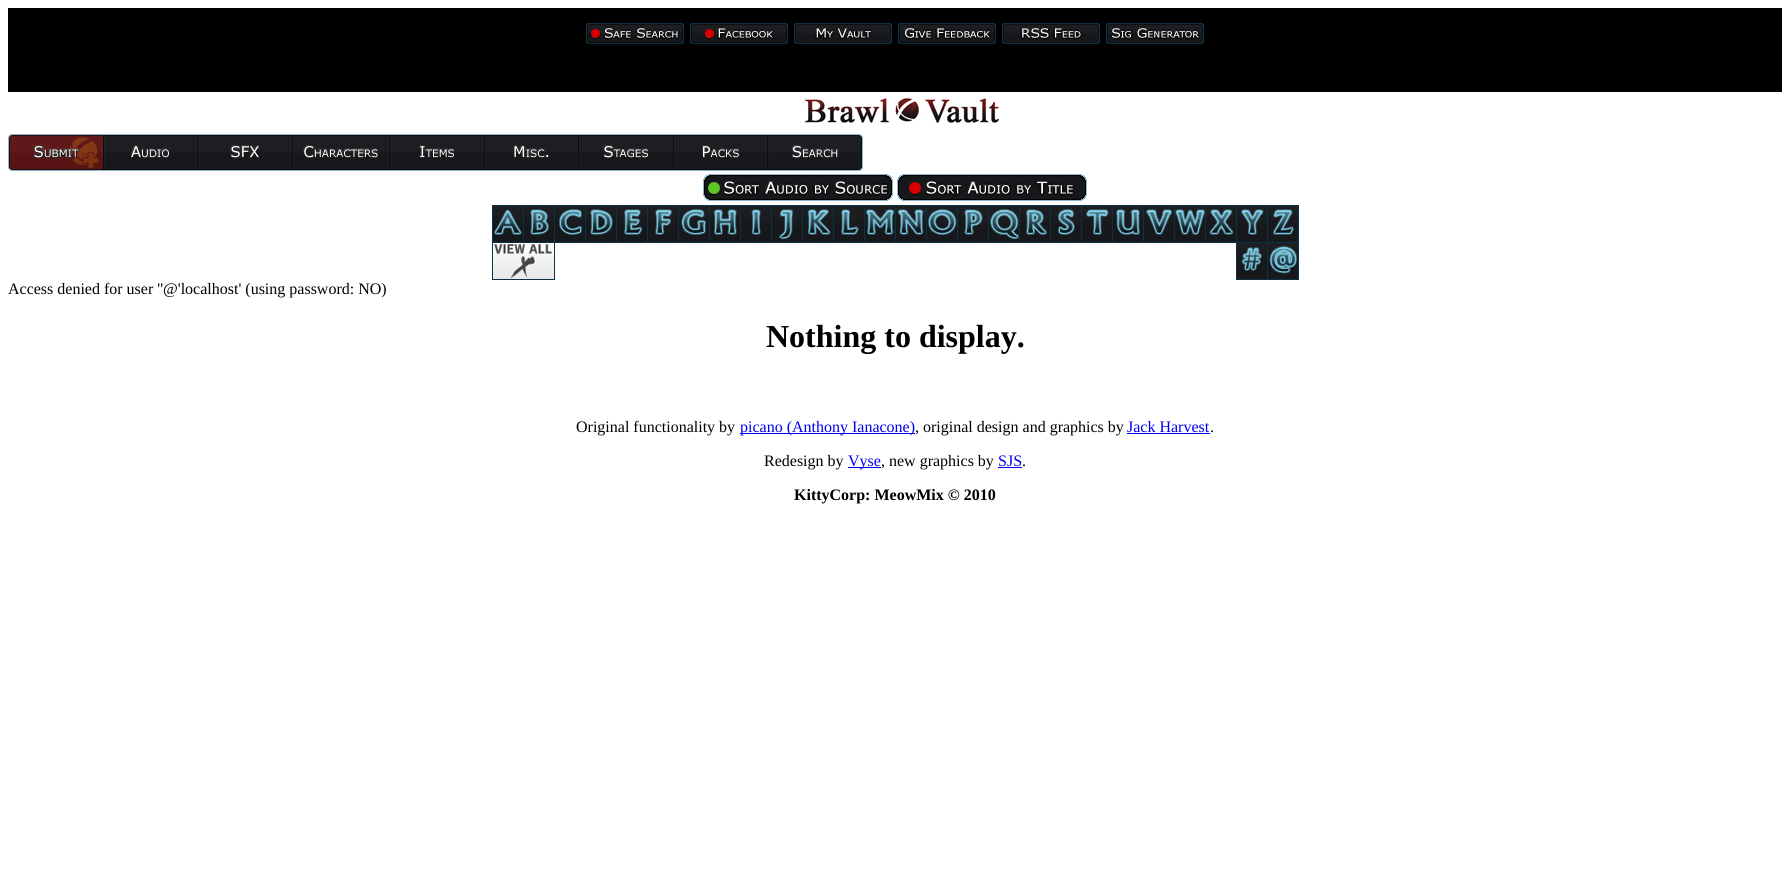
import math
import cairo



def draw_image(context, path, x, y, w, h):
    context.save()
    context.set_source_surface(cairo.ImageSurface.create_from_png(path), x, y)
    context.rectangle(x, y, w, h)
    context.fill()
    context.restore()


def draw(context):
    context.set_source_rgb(1, 1, 1)
    context.paint()
    context.set_source_rgb(0, 0, 0)
    context.rectangle(8, 8, 1774, 84)
    context.fill()
    draw_image(context, "images/1.png", 586, 23, 98, 21)
    draw_image(context, "images/2.png", 690, 23, 98, 21)
    draw_image(context, "images/3.png", 794, 23, 98, 21)
    draw_image(context, "images/4.png", 898, 23, 98, 21)
    draw_image(context, "images/5.png", 1002, 23, 98, 21)
    draw_image(context, "images/6.png", 1106, 23, 98, 21)
    draw_image(context, "images/7.png", 804, 98, 195, 25)
    draw_image(context, "images/8.png", 8, 134, 96, 37)
    draw_image(context, "images/9.png", 104, 134, 94, 37)
    draw_image(context, "images/10.png", 198, 134, 95, 37)
    draw_image(context, "images/11.png", 293, 134, 97, 37)
    draw_image(context, "images/12.png", 390, 134, 95, 37)
    draw_image(context, "images/13.png", 485, 134, 94, 37)
    draw_image(context, "images/14.png", 579, 134, 95, 37)
    draw_image(context, "images/15.png", 674, 134, 94, 37)
    draw_image(context, "images/16.png", 768, 134, 95, 37)
    draw_image(context, "images/17.png", 703, 174, 190, 27)
    draw_image(context, "images/18.png", 897, 174, 190, 27)
    draw_image(context, "images/19.png", 492, 205, 807, 75)
    context.set_source_rgb(0, 0, 238 / 255)
    context.rectangle(740, 433, 175, 1)
    context.fill()
    context.rectangle(1127, 433, 83, 1)
    context.fill()
    context.rectangle(848, 467, 33, 1)
    context.fill()
    context.rectangle(998, 467, 24, 1)
    context.fill()
    context.select_font_face("Liberation Serif")
    context.set_font_size(16)
    context.set_source_rgb(0, 0, 0)
    context.move_to(8, 294)
    context.show_text("Access denied for user ''@'localhost' (using password: NO)")
    context.select_font_face("Liberation Serif", cairo.FontSlant.NORMAL, cairo.FontWeight.BOLD)
    context.set_font_size(32)
    context.move_to(766, 347)
    context.show_text("Nothing to display.")
    context.select_font_face("Liberation Serif")
    context.set_font_size(16)
    context.move_to(576, 432)
    context.show_text("Original functionality by")
    context.set_source_rgb(0, 0, 238 / 255)
    context.move_to(740, 432)
    context.show_text("picano (Anthony Ianacone)")
    context.set_source_rgb(0, 0, 0)
    context.move_to(915, 432)
    context.show_text(", original design and graphics by")
    context.set_source_rgb(0, 0, 238 / 255)
    context.move_to(1127, 432)
    context.show_text("Jack Harvest")
    context.set_source_rgb(0, 0, 0)
    context.move_to(1210, 432)
    context.show_text(".")
    context.move_to(764, 466)
    context.show_text("Redesign by")
    context.set_source_rgb(0, 0, 238 / 255)
    context.move_to(848, 466)
    context.show_text("Vyse")
    context.set_source_rgb(0, 0, 0)
    context.move_to(881, 466)
    context.show_text(", new graphics by")
    context.set_source_rgb(0, 0, 238 / 255)
    context.move_to(998, 466)
    context.show_text("SJS")
    context.set_source_rgb(0, 0, 0)
    context.move_to(1022, 466)
    context.show_text(".")
    context.select_font_face("Liberation Serif", cairo.FontSlant.NORMAL, cairo.FontWeight.BOLD)
    context.move_to(794, 500)
    context.show_text("KittyCorp: MeowMix © 2010")


surface = cairo.ImageSurface(cairo.Format.RGB24, 1790, 891)
context = cairo.Context(surface)
options = cairo.FontOptions()
options.set_hint_metrics(cairo.HintMetrics.OFF)
options.set_hint_style(cairo.HintStyle.NONE)
context.set_font_options(options)
context.set_miter_limit(4)
draw(context)
surface.write_to_png("out.png")
